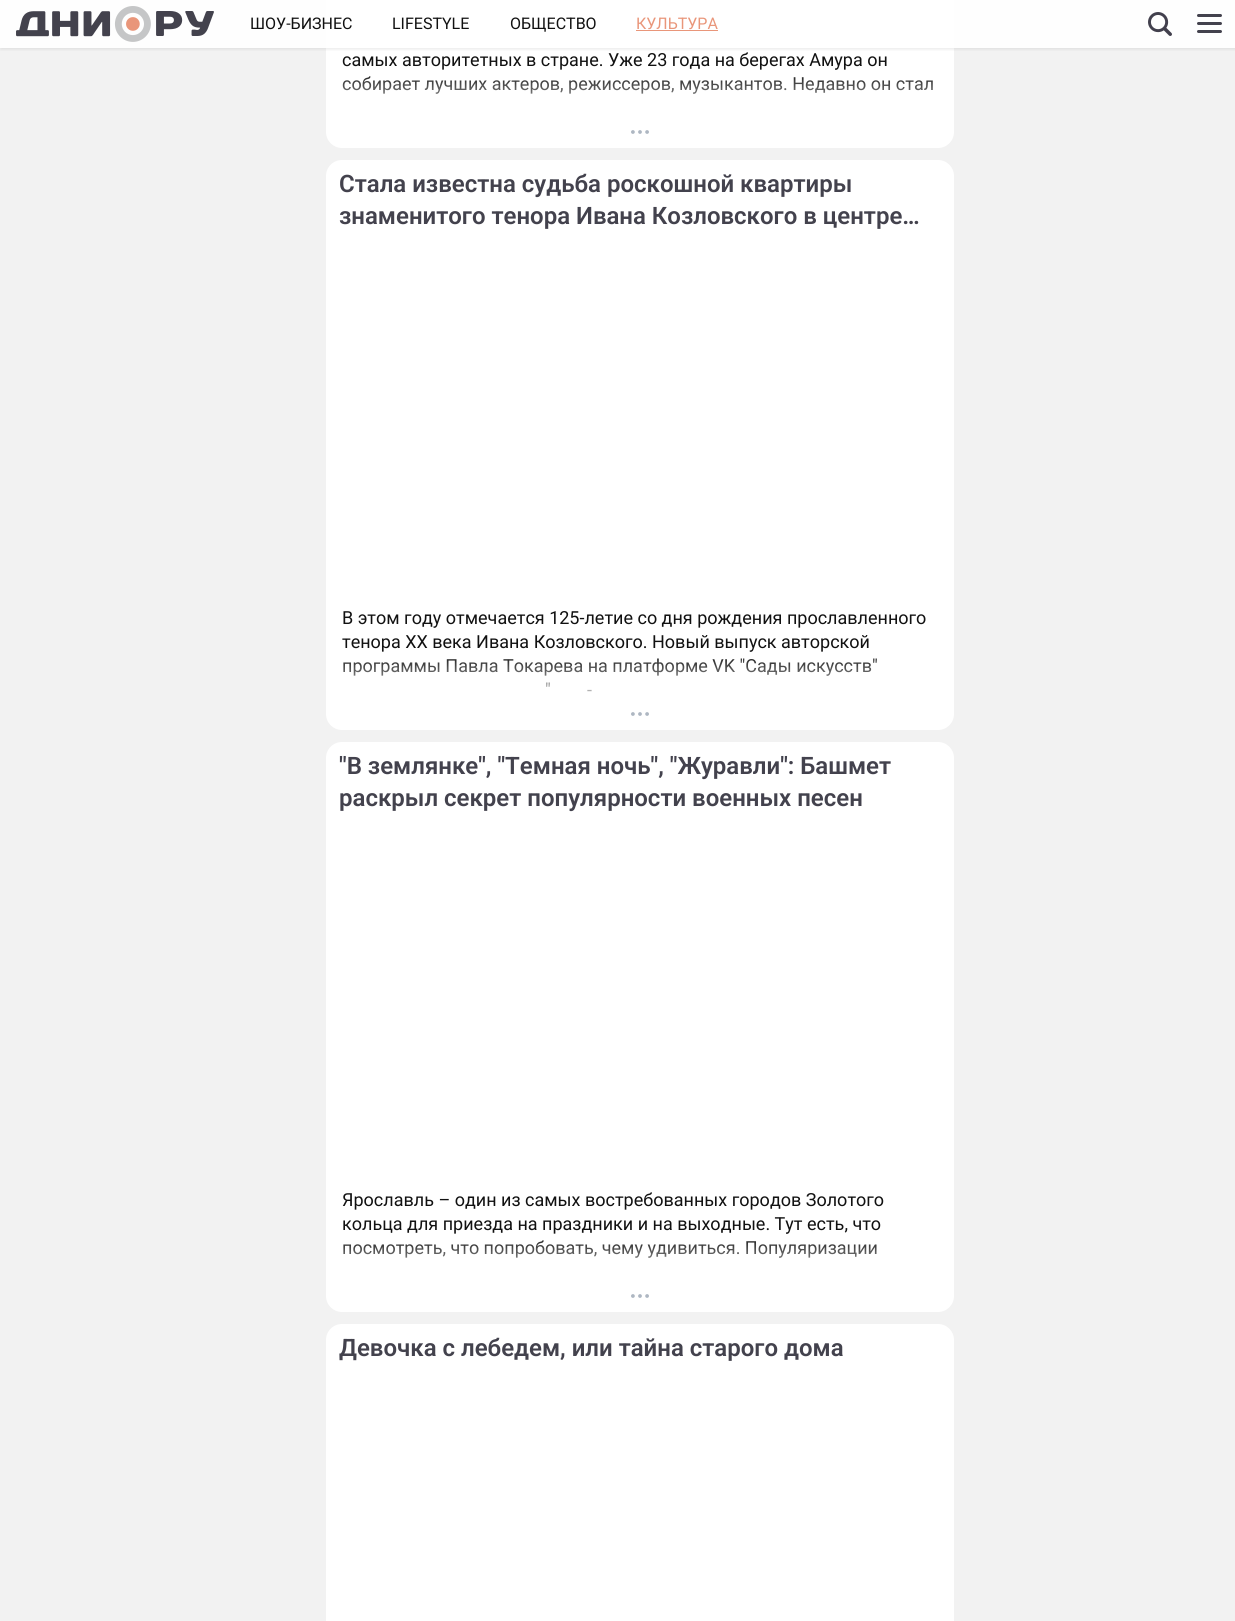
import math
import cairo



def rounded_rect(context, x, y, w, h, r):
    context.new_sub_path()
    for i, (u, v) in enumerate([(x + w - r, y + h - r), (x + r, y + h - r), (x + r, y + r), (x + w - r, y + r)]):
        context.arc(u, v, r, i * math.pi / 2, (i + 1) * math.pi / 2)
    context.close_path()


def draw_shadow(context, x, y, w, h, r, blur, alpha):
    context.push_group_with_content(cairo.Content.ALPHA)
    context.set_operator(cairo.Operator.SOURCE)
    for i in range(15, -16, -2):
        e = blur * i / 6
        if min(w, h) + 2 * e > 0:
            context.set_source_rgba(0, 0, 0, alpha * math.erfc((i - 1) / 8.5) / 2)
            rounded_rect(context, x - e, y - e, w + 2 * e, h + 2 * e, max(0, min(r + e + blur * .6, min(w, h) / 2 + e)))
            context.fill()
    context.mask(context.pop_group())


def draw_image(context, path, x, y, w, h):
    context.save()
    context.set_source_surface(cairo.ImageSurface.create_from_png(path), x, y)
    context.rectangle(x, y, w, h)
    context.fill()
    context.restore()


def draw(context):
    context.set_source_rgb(242 / 255, 242 / 255, 242 / 255)
    context.paint()
    context.set_source_rgb(254 / 255, 254 / 255, 254 / 255)
    context.rectangle(0, 0, 1235, 48)
    context.fill()
    context.set_source_rgb(1, 1, 1)
    rounded_rect(context, 326, -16, 628, 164, 16)
    context.fill()
    context.save()
    context.rectangle(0, 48, 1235, 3)
    context.clip()
    context.set_source_rgb(0, 0, 0)
    draw_shadow(context, 1, 1, 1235, 48, 0, 2, 0.1)
    context.restore()
    draw_image(context, "images/1.png", 16, 6, 198, 36)
    context.set_source_rgb(233 / 255, 150 / 255, 122 / 255)
    context.rectangle(636, 30, 82, 1)
    context.fill()
    draw_image(context, "images/2.png", 1148, 12, 24, 24)
    context.set_source_rgb(67 / 255, 66 / 255, 77 / 255)
    rounded_rect(context, 1197, 22, 25, 3, 1.5)
    context.fill()
    rounded_rect(context, 1197, 14, 25, 3, 1.5)
    context.fill()
    rounded_rect(context, 1197, 30, 25, 3, 1.5)
    context.fill()
    draw_image(context, "images/3.png", 631, 130, 18, 4)
    context.set_source_rgb(1, 1, 1)
    rounded_rect(context, 326, 160, 628, 570, 16)
    context.fill()
    draw_image(context, "images/3.png", 631, 712, 18, 4)
    rounded_rect(context, 326, 742, 628, 570, 16)
    context.fill()
    draw_image(context, "images/3.png", 631, 1294, 18, 4)
    rounded_rect(context, 326, 1324, 628, 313, 16)
    context.fill()
    context.select_font_face("Roboto")
    context.set_font_size(16)
    context.set_source_rgb(17 / 255, 17 / 255, 17 / 255)
    context.move_to(250, 29)
    context.show_text("ШОУ-БИЗНЕС")
    context.move_to(392, 29)
    context.show_text("LIFESTYLE")
    context.move_to(510, 29)
    context.show_text("ОБЩЕСТВО")
    context.set_source_rgb(233 / 255, 150 / 255, 122 / 255)
    context.move_to(636, 29)
    context.show_text("КУЛЬТУРА")
    context.set_font_size(18)
    context.set_source_rgb(17 / 255, 17 / 255, 17 / 255)
    context.move_to(342, 66)
    context.show_text("самых авторитетных в стране. Уже 23 года на берегах Амура он")
    context.move_to(342, 90)
    context.show_text("собирает лучших актеров, режиссеров, музыкантов. Недавно он стал")
    gradient = cairo.LinearGradient(640, 71, 640, 121)
    gradient.add_color_stop_rgba(0, 1, 1, 1, 0)
    gradient.add_color_stop_rgba(1, 1, 1, 1, 0.9)
    context.set_source(gradient)
    context.rectangle(342, 76, 591, 18)
    context.fill()
    context.select_font_face("Roboto SemiBold")
    context.set_font_size(24)
    context.set_source_rgb(67 / 255, 66 / 255, 77 / 255)
    context.move_to(339, 192)
    context.show_text("Стала известна судьба роскошной квартиры")
    context.move_to(339, 224)
    context.show_text("знаменитого тенора Ивана Козловского в центре…")
    context.select_font_face("Roboto")
    context.set_font_size(18)
    context.set_source_rgb(17 / 255, 17 / 255, 17 / 255)
    context.move_to(342, 624)
    context.show_text("В этом году отмечается 125-летие со дня рождения прославленного")
    context.move_to(342, 648)
    context.show_text("тенора XX века Ивана Козловского. Новый выпуск авторской")
    context.move_to(342, 672)
    context.show_text("программы Павла Токарева на платформе VK \"Сады искусств\"")
    context.move_to(545, 696)
    context.show_text("\"")
    context.move_to(587, 696)
    context.show_text("-")
    gradient = cairo.LinearGradient(640, 653, 640, 703)
    gradient.add_color_stop_rgba(0, 1, 1, 1, 0)
    gradient.add_color_stop_rgba(1, 1, 1, 1, 0.9)
    context.set_source(gradient)
    context.rectangle(343, 658, 534, 34)
    context.fill()
    context.select_font_face("Roboto SemiBold")
    context.set_font_size(24)
    context.set_source_rgb(67 / 255, 66 / 255, 77 / 255)
    context.move_to(339, 774)
    context.show_text("\"В землянке\", \"Темная ночь\", \"Журавли\": Башмет")
    context.move_to(339, 806)
    context.show_text("раскрыл секрет популярности военных песен")
    context.select_font_face("Roboto")
    context.set_font_size(18)
    context.set_source_rgb(17 / 255, 17 / 255, 17 / 255)
    context.move_to(342, 1206)
    context.show_text("Ярославль – один из самых востребованных городов Золотого")
    context.move_to(342, 1230)
    context.show_text("кольца для приезда на праздники и на выходные. Тут есть, что")
    context.move_to(342, 1254)
    context.show_text("посмотреть, что попробовать, чему удивиться. Популяризации")
    gradient = cairo.LinearGradient(640, 1235, 640, 1285)
    gradient.add_color_stop_rgba(0, 1, 1, 1, 0)
    gradient.add_color_stop_rgba(1, 1, 1, 1, 0.9)
    context.set_source(gradient)
    context.rectangle(343, 1240, 534, 18)
    context.fill()
    context.select_font_face("Roboto SemiBold")
    context.set_font_size(24)
    context.set_source_rgb(67 / 255, 66 / 255, 77 / 255)
    context.move_to(339, 1356)
    context.show_text("Девочка с лебедем, или тайна старого дома")


surface = cairo.ImageSurface(cairo.Format.RGB24, 1235, 1621)
context = cairo.Context(surface)
options = cairo.FontOptions()
options.set_hint_metrics(cairo.HintMetrics.OFF)
options.set_hint_style(cairo.HintStyle.NONE)
context.set_font_options(options)
context.set_miter_limit(4)
draw(context)
surface.write_to_png("out.png")
